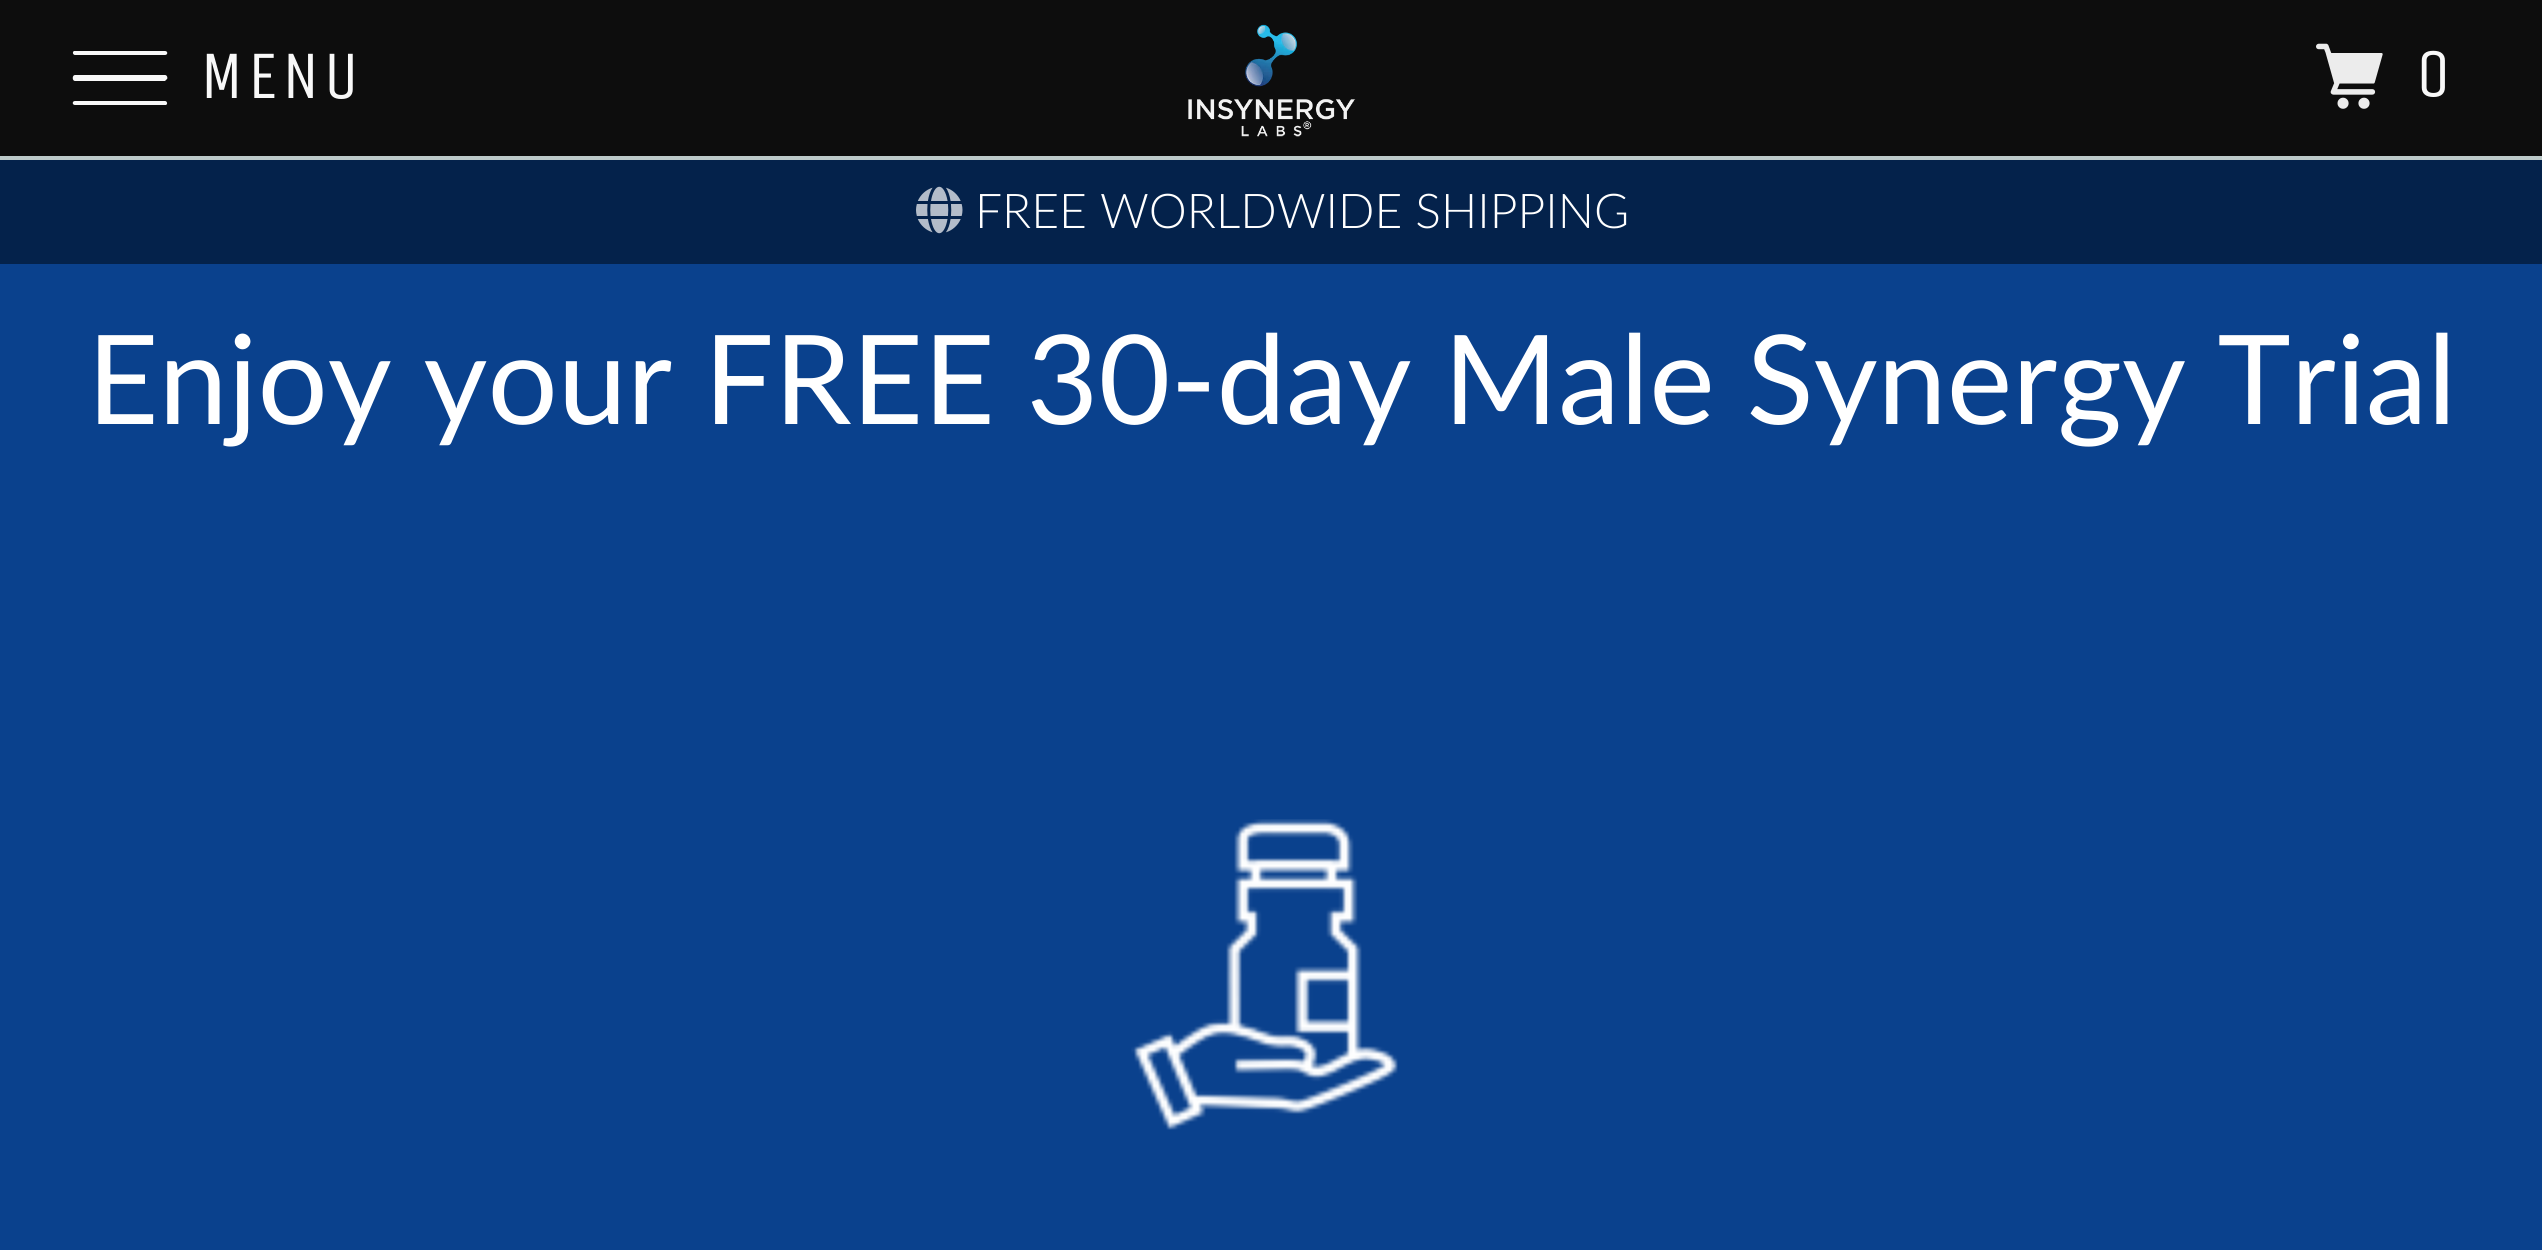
import math
import cairo



def draw_spaced(context, x, y, s, letter, word):
    context.move_to(x, y)
    for ch in s:
        context.show_text(ch)
        context.rel_move_to(letter + word * (ch == ' '), 0)


def draw_image(context, path, x, y, w, h):
    context.save()
    context.set_source_surface(cairo.ImageSurface.create_from_png(path), x, y)
    context.rectangle(x, y, w, h)
    context.fill()
    context.restore()


def draw(context):
    context.set_source_rgb(10 / 255, 65 / 255, 141 / 255)
    context.paint()
    context.set_source_rgb(13 / 255, 13 / 255, 13 / 255)
    context.rectangle(0, 0, 2542, 156)
    context.fill()
    context.set_source_rgb(188 / 255, 201 / 255, 201 / 255)
    context.rectangle(0, 156, 2542, 4)
    context.fill()
    context.set_source_rgb(248 / 255, 248 / 255, 248 / 255)
    context.new_path()
    context.move_to(165, 75)
    context.line_to(75, 75)
    context.curve_to(72, 75, 72, 81, 75, 81)
    context.line_to(165, 81)
    context.line_to(167, 79)
    context.curve_to(168, 78, 167, 75, 165, 75)
    context.close_path()
    context.move_to(165, 101)
    context.line_to(75, 101)
    context.curve_to(72, 101, 72, 105, 75, 105)
    context.line_to(166, 105)
    context.curve_to(168, 104, 167, 101, 165, 101)
    context.close_path()
    context.move_to(75, 55)
    context.line_to(165, 55)
    context.curve_to(168, 55, 168, 51, 165, 51)
    context.line_to(74, 51)
    context.curve_to(72, 52, 73, 55, 75, 55)
    context.close_path()
    context.fill()
    draw_image(context, "images/1.png", 1188, 24, 168, 113)
    draw_image(context, "images/2.png", 2316, 43, 67, 66)
    context.set_source_rgb(4 / 255, 34 / 255, 75 / 255)
    context.rectangle(0, 160, 2542, 104)
    context.fill()
    draw_image(context, "images/3.png", 916, 186, 47, 48)
    draw_image(context, "images/4.png", 1131, 819, 267, 311)
    context.select_font_face("Unica One")
    context.set_font_size(68)
    context.set_source_rgb(248 / 255, 248 / 255, 248 / 255)
    draw_spaced(context, 200, 98, "MENU", 4, 0)
    draw_spaced(context, 2416, 96, "0", 4, 0)
    context.select_font_face("Lato Light")
    context.set_font_size(48)
    context.set_source_rgb(1, 1, 1)
    context.move_to(975, 228)
    context.show_text("FREE WORLDWIDE SHIPPING")
    context.select_font_face("Lato")
    context.set_font_size(124)
    context.move_to(87, 424)
    context.show_text("Enjoy your FREE 30-day Male Synergy Trial")


surface = cairo.ImageSurface(cairo.Format.RGB24, 2542, 1250)
context = cairo.Context(surface)
options = cairo.FontOptions()
options.set_hint_metrics(cairo.HintMetrics.OFF)
options.set_hint_style(cairo.HintStyle.NONE)
context.set_font_options(options)
context.set_miter_limit(4)
draw(context)
surface.write_to_png("out.png")
